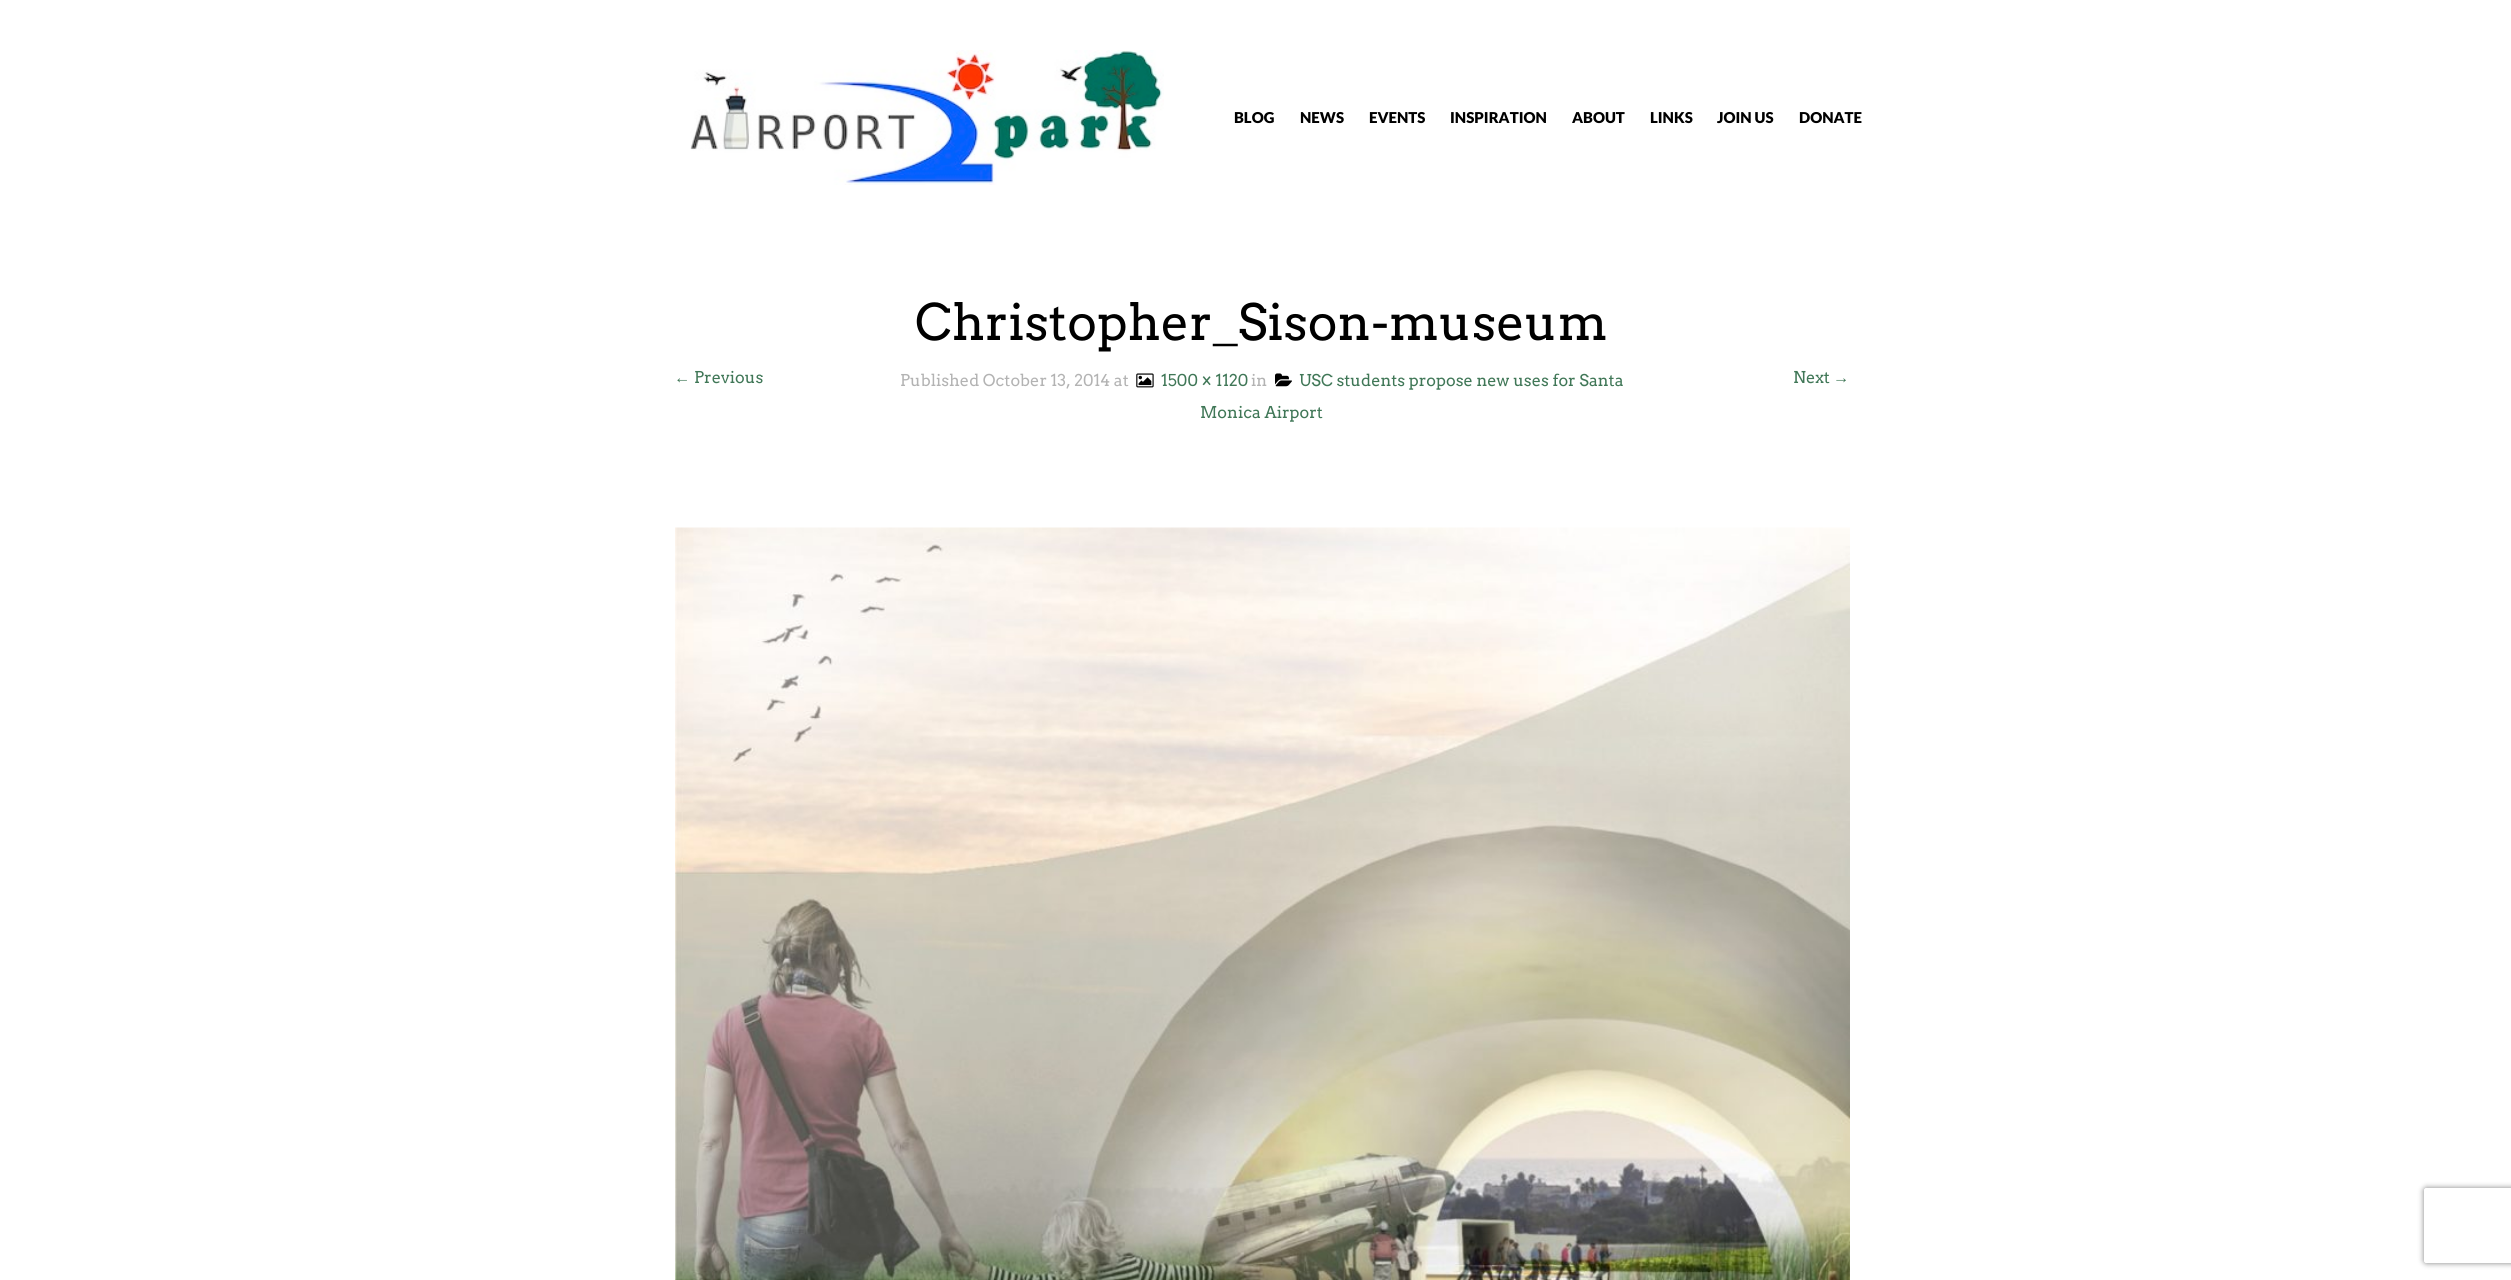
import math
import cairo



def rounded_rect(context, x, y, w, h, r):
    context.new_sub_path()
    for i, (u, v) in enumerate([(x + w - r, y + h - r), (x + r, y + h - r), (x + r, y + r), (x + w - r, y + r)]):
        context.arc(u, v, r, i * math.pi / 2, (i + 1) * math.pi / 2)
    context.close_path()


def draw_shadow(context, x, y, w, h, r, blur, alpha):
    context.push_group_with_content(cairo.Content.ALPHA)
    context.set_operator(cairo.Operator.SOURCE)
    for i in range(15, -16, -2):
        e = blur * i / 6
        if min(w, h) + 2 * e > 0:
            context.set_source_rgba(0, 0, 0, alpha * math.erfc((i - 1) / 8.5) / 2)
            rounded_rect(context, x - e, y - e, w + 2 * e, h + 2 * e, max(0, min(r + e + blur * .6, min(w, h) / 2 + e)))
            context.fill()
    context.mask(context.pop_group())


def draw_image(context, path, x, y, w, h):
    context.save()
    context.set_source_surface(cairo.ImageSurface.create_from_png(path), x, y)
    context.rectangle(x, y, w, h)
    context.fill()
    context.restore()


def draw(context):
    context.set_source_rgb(1, 1, 1)
    context.paint()
    draw_image(context, "images/1.png", 690, 50, 474, 135)
    draw_image(context, "images/2.png", 1136, 373, 18, 15)
    draw_image(context, "images/3.png", 1275, 373, 17, 14)
    draw_image(context, "images/4.png", 675, 527, 1175, 753)
    context.save()
    context.set_fill_rule(cairo.FillRule.EVEN_ODD)
    context.new_path()
    context.move_to(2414, 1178)
    context.line_to(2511, 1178)
    context.line_to(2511, 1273)
    context.line_to(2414, 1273)
    context.close_path()
    context.move_to(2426.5, 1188)
    context.line_to(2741.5, 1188)
    context.curve_to(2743, 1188, 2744, 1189, 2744, 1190.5)
    context.line_to(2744, 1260.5)
    context.curve_to(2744, 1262, 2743, 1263, 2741.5, 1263)
    context.line_to(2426.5, 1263)
    context.curve_to(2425, 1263, 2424, 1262, 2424, 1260.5)
    context.line_to(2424, 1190.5)
    context.curve_to(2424, 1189, 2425, 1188, 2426.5, 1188)
    context.close_path()
    context.clip()
    context.set_source_rgb(128 / 255, 128 / 255, 128 / 255)
    draw_shadow(context, 2424, 1188, 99, 75, 2.5, 3, 1)
    context.restore()
    context.select_font_face("Lato Black")
    context.set_font_size(15)
    context.set_source_rgb(0, 0, 0)
    context.move_to(1234, 123)
    context.show_text("BLOG")
    context.move_to(1300, 123)
    context.show_text("NEWS")
    context.move_to(1369, 123)
    context.show_text("EVENTS")
    context.move_to(1450, 123)
    context.show_text("INSPIRATION")
    context.move_to(1572, 123)
    context.show_text("ABOUT")
    context.move_to(1650, 123)
    context.show_text("LINKS")
    context.move_to(1717, 123)
    context.show_text("JOIN US")
    context.move_to(1799, 123)
    context.show_text("DONATE")
    context.select_font_face("Arvo")
    context.set_font_size(50)
    context.move_to(915, 340)
    context.show_text("Christopher_Sison-museum")
    context.select_font_face("Liberation Sans")
    context.set_font_size(16.25)
    context.set_source_rgb(64 / 255, 119 / 255, 87 / 255)
    context.move_to(674, 383)
    context.show_text("←")
    context.select_font_face("Arvo")
    context.move_to(694, 383)
    context.show_text("Previous")
    context.set_source_rgb(179 / 255, 179 / 255, 179 / 255)
    context.move_to(900, 386)
    context.show_text("Published October 13, 2014 at")
    context.set_source_rgb(64 / 255, 119 / 255, 87 / 255)
    context.move_to(1161, 386)
    context.show_text("1500 × 1120")
    context.move_to(1299, 386)
    context.show_text("USC students propose new uses for Santa")
    context.move_to(1200, 418)
    context.show_text("Monica Airport")
    context.set_source_rgb(179 / 255, 179 / 255, 179 / 255)
    context.move_to(1251, 386)
    context.show_text("in")
    context.set_source_rgb(64 / 255, 119 / 255, 87 / 255)
    context.move_to(1793, 383)
    context.show_text("Next")
    context.select_font_face("Liberation Sans")
    context.move_to(1833, 383)
    context.show_text("→")


surface = cairo.ImageSurface(cairo.Format.RGB24, 2511, 1280)
context = cairo.Context(surface)
options = cairo.FontOptions()
options.set_hint_metrics(cairo.HintMetrics.OFF)
options.set_hint_style(cairo.HintStyle.NONE)
context.set_font_options(options)
context.set_miter_limit(4)
draw(context)
surface.write_to_png("out.png")
